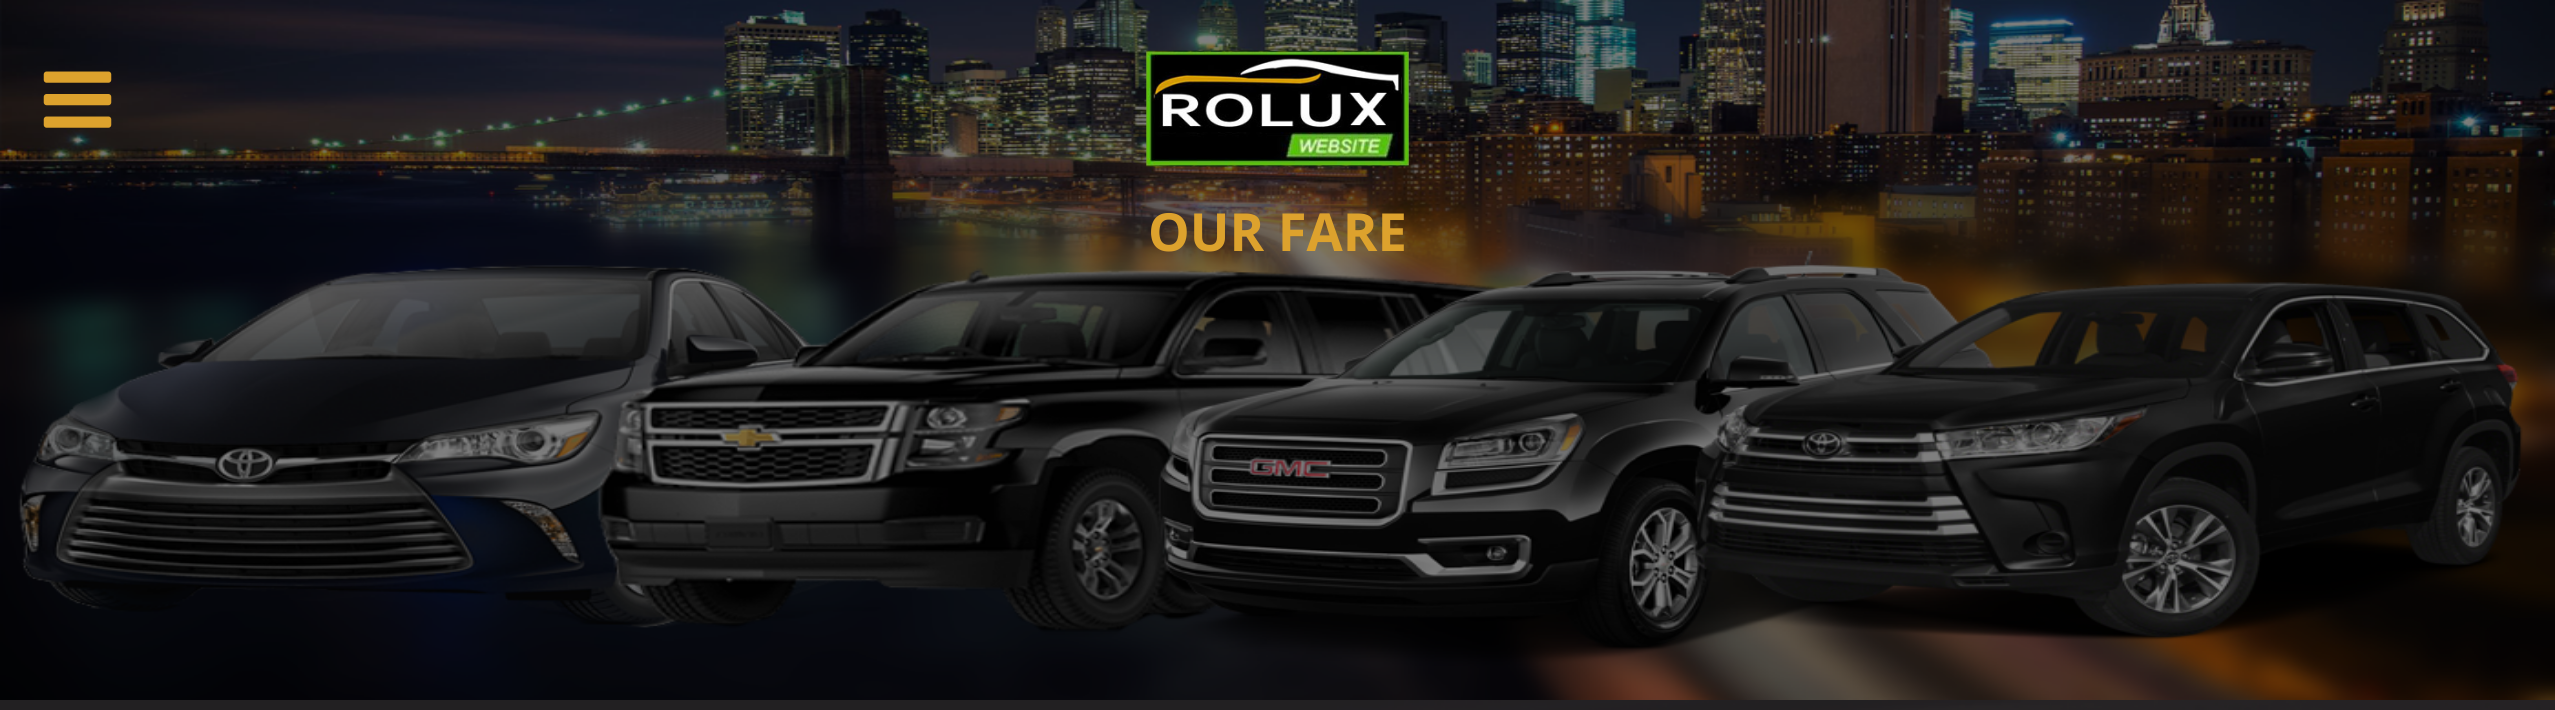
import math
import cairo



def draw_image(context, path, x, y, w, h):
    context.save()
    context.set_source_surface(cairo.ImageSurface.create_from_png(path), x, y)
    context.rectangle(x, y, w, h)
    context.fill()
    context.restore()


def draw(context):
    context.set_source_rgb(1, 1, 1)
    context.paint()
    draw_image(context, "images/2.png", 0, 0, 2555, 700)
    draw_image(context, "images/1.png", 43, 71, 69, 57)
    draw_image(context, "images/3.png", 1146, 50, 263, 117)
    draw_image(context, "images/4.png", 0, 700, 2555, 10)
    context.select_font_face("Open Sans", cairo.FontSlant.NORMAL, cairo.FontWeight.BOLD)
    context.set_font_size(52.5)
    context.set_source_rgb(221 / 255, 162 / 255, 45 / 255)
    context.move_to(1148, 251)
    context.show_text("OUR FARE")


surface = cairo.ImageSurface(cairo.Format.RGB24, 2555, 710)
context = cairo.Context(surface)
options = cairo.FontOptions()
options.set_hint_metrics(cairo.HintMetrics.OFF)
options.set_hint_style(cairo.HintStyle.NONE)
context.set_font_options(options)
context.set_miter_limit(4)
draw(context)
surface.write_to_png("out.png")
